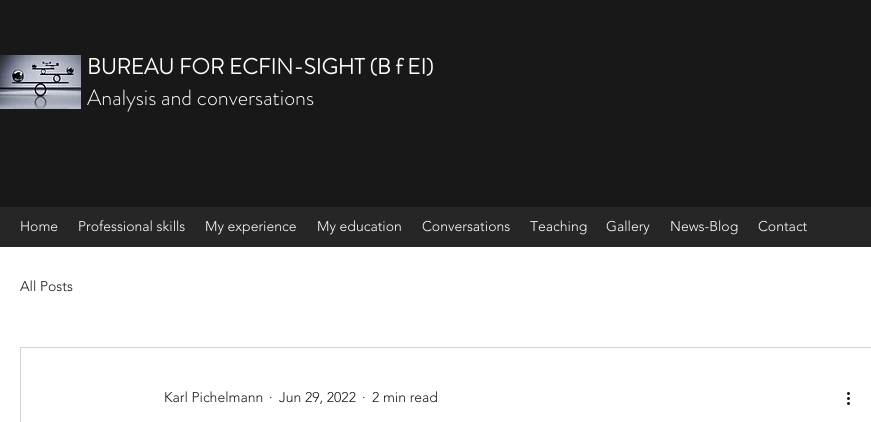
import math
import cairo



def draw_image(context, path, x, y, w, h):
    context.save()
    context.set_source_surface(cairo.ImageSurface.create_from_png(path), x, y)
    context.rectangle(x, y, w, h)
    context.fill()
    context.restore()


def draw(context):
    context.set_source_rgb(1, 1, 1)
    context.paint()
    context.set_source_rgb(24 / 255, 24 / 255, 24 / 255)
    context.rectangle(0, 0, 871, 207)
    context.fill()
    draw_image(context, "images/1.png", 0, 55, 81, 54)
    context.set_source_rgb(38 / 255, 38 / 255, 38 / 255)
    context.rectangle(0, 207, 871, 40)
    context.fill()
    context.rectangle(20.5, 347.5, 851, 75)
    context.set_source_rgb(212 / 255, 212 / 255, 212 / 255)
    context.set_line_width(1)
    context.stroke()
    draw_image(context, "images/2.png", 847, 392, 3, 13)
    context.select_font_face("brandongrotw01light", cairo.FontSlant.NORMAL, cairo.FontWeight.BOLD)
    context.set_font_size(22)
    context.set_source_rgb(1, 1, 1)
    context.move_to(87, 74)
    context.show_text("BUREAU FOR ECFIN-SIGHT (B f EI)")
    context.select_font_face("brandongrotw01light Light")
    context.move_to(87, 105)
    context.show_text("Analysis and conversations")
    context.select_font_face("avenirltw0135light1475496 Light")
    context.set_font_size(14)
    context.move_to(20, 231)
    context.show_text("Home")
    context.move_to(78, 231)
    context.show_text("Professional skills")
    context.move_to(205, 231)
    context.show_text("My experience")
    context.move_to(317, 231)
    context.show_text("My education")
    context.move_to(422, 231)
    context.show_text("Conversations")
    context.move_to(530, 231)
    context.show_text("Teaching")
    context.move_to(606, 231)
    context.show_text("Gallery")
    context.move_to(670, 231)
    context.show_text("News-Blog")
    context.move_to(758, 231)
    context.show_text("Contact")
    context.set_source_rgb(24 / 255, 24 / 255, 24 / 255)
    context.move_to(20, 291)
    context.show_text("All Posts")
    context.move_to(164, 402)
    context.show_text("Karl Pichelmann")
    context.move_to(269, 402)
    context.show_text("·")
    context.move_to(279, 402)
    context.show_text("Jun 29, 2022")
    context.move_to(362, 402)
    context.show_text("·")
    context.move_to(372, 402)
    context.show_text("2 min read")


surface = cairo.ImageSurface(cairo.Format.RGB24, 871, 422)
context = cairo.Context(surface)
options = cairo.FontOptions()
options.set_hint_metrics(cairo.HintMetrics.OFF)
options.set_hint_style(cairo.HintStyle.NONE)
context.set_font_options(options)
context.set_miter_limit(4)
draw(context)
surface.write_to_png("out.png")
